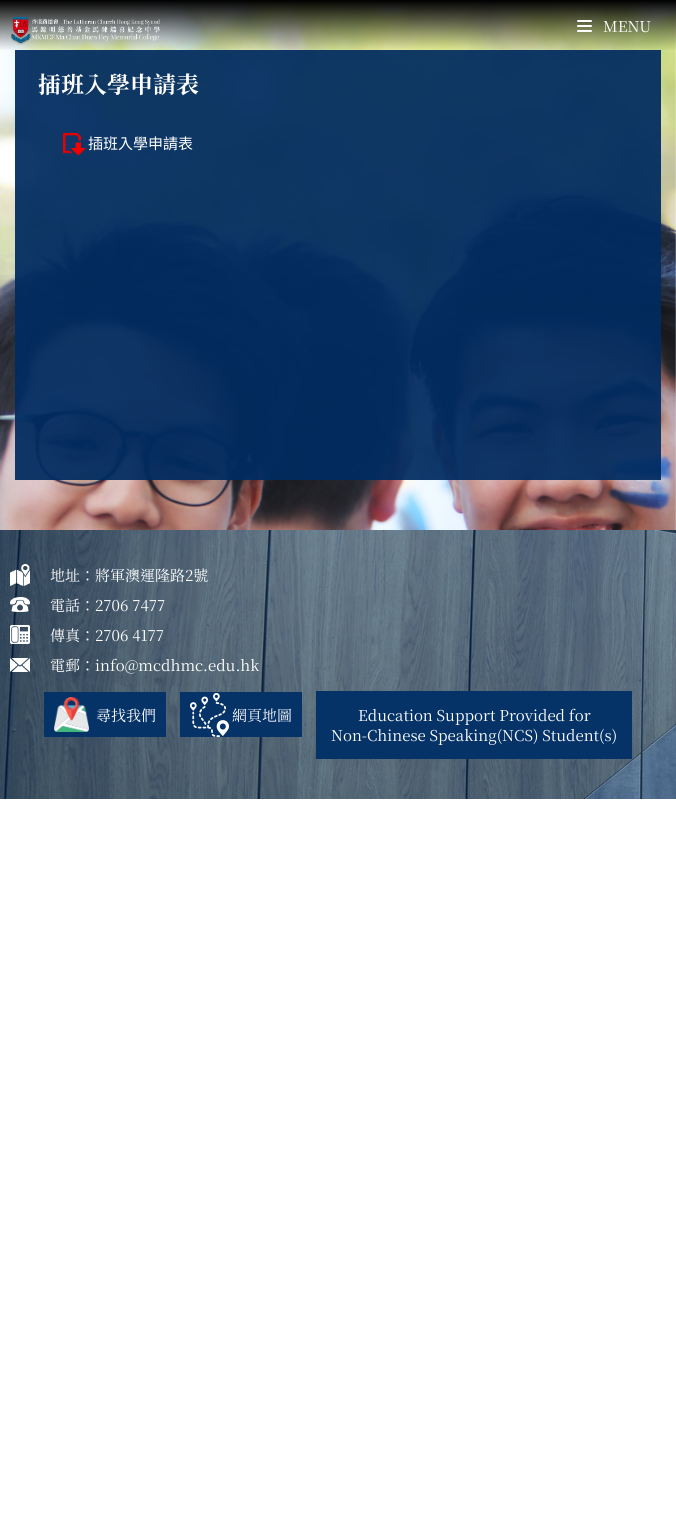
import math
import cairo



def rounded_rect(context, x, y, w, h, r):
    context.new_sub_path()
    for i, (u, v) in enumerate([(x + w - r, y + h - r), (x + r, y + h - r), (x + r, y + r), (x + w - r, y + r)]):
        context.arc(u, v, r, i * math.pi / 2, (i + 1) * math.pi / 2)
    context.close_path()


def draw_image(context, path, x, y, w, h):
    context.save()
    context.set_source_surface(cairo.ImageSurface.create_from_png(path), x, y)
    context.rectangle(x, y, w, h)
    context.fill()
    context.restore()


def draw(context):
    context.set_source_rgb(1, 1, 1)
    context.paint()
    draw_image(context, "images/2.png", 0, 0, 676, 530)
    gradient = cairo.LinearGradient(338, 51, 338, 0)
    gradient.add_color_stop_rgba(0, 0, 0, 0, 0)
    gradient.add_color_stop_rgba(1, 0, 0, 0, 1)
    context.set_source(gradient)
    context.rectangle(0, 0, 676, 50)
    context.fill()
    draw_image(context, "images/1.png", 11, 16, 149, 29)
    context.set_source_rgb(1, 1, 1)
    rounded_rect(context, 577, 20, 15, 2, 1)
    context.fill()
    rounded_rect(context, 577, 25, 15, 2, 1)
    context.fill()
    rounded_rect(context, 577, 30, 15, 2, 1)
    context.fill()
    context.set_source_rgba(0, 43 / 255, 96 / 255, 0.93)
    context.rectangle(15, 50, 646, 430)
    context.fill()
    draw_image(context, "images/3.png", 63, 133, 23, 23)
    draw_image(context, "images/4.png", 0, 530, 676, 269)
    draw_image(context, "images/5.png", 10, 564, 20, 22)
    draw_image(context, "images/6.png", 10, 597, 20, 15)
    draw_image(context, "images/7.png", 10, 625, 20, 19)
    draw_image(context, "images/8.png", 10, 658, 20, 14)
    context.set_source_rgb(5 / 255, 51 / 255, 104 / 255)
    context.rectangle(44, 692, 122, 45)
    context.fill()
    draw_image(context, "images/9.png", 54, 697, 35, 35)
    context.rectangle(180, 692, 122, 45)
    context.fill()
    draw_image(context, "images/10.png", 190, 693, 39, 44)
    context.rectangle(316, 691, 316, 68)
    context.fill()
    context.select_font_face("Noto Serif TC")
    context.set_font_size(15)
    context.set_source_rgb(1, 1, 1)
    context.move_to(603, 32)
    context.show_text("MENU")
    context.select_font_face("Noto Serif TC", cairo.FontSlant.NORMAL, cairo.FontWeight.BOLD)
    context.set_font_size(23)
    context.move_to(38, 93)
    context.show_text("插班入學申請表")
    context.select_font_face("Noto Sans TC Thin")
    context.set_font_size(15)
    context.move_to(88, 149)
    context.show_text("插班入學申請表")
    context.select_font_face("Noto Serif TC")
    context.move_to(50, 581)
    context.show_text("地址：將軍澳運隆路2號")
    context.move_to(50, 611)
    context.show_text("電話：2706 7477")
    context.move_to(50, 641)
    context.show_text("傳真：2706 4177")
    context.move_to(50, 671)
    context.show_text("電郵：info@mcdhmc.edu.hk")
    context.move_to(96, 721)
    context.show_text("尋找我們")
    context.move_to(232, 721)
    context.show_text("網頁地圖")
    context.move_to(358, 721)
    context.show_text("Education Support Provided for")
    context.move_to(331, 741)
    context.show_text("Non-Chinese Speaking(NCS) Student(s)")


surface = cairo.ImageSurface(cairo.Format.RGB24, 676, 1516)
context = cairo.Context(surface)
options = cairo.FontOptions()
options.set_hint_metrics(cairo.HintMetrics.OFF)
options.set_hint_style(cairo.HintStyle.NONE)
context.set_font_options(options)
context.set_miter_limit(4)
draw(context)
surface.write_to_png("out.png")
